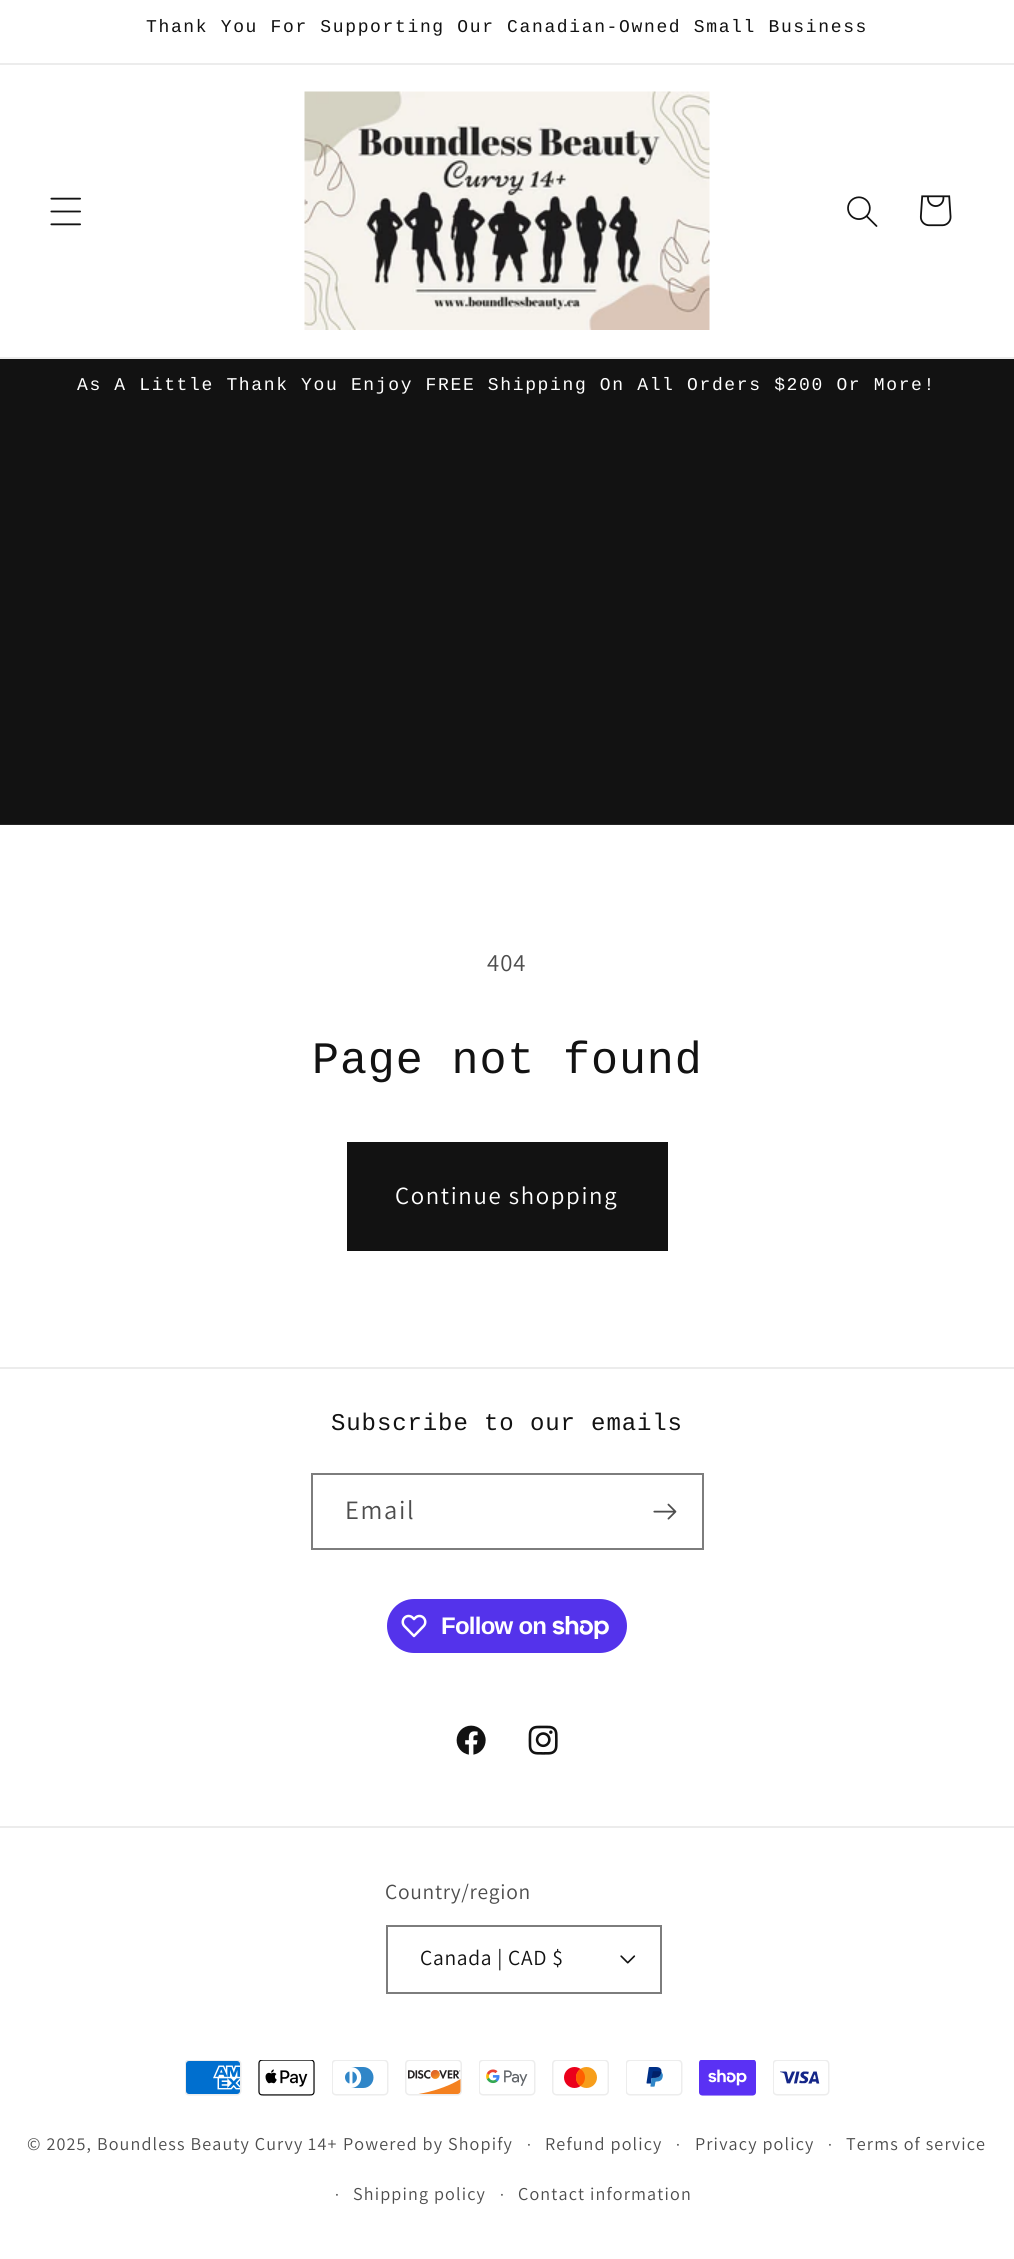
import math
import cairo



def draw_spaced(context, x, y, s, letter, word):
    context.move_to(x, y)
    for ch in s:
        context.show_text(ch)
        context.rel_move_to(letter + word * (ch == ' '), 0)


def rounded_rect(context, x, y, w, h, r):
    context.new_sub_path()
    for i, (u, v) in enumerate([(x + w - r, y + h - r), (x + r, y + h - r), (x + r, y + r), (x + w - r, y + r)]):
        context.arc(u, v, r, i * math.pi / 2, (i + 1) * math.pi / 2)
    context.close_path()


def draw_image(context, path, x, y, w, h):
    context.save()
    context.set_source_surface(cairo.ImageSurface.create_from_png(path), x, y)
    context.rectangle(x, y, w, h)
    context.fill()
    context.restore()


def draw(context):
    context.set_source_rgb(1, 1, 1)
    context.paint()
    context.set_source_rgb(236 / 255, 236 / 255, 236 / 255)
    context.rectangle(0, 63, 1014, 2)
    context.fill()
    context.rectangle(0, 357, 1014, 2)
    context.fill()
    draw_image(context, "images/1.png", 50, 197, 31, 29)
    draw_image(context, "images/2.png", 304, 91, 406, 239)
    draw_image(context, "images/3.png", 847, 196, 31, 31)
    draw_image(context, "images/4.png", 919, 195, 33, 32)
    context.set_source_rgb(18 / 255, 18 / 255, 18 / 255)
    context.rectangle(0, 359, 1014, 465)
    context.fill()
    context.set_source_rgb(37 / 255, 37 / 255, 37 / 255)
    context.rectangle(0, 824, 1014, 1)
    context.fill()
    context.set_source_rgb(18 / 255, 18 / 255, 18 / 255)
    context.rectangle(347, 1142, 321, 109)
    context.fill()
    context.set_source_rgb(236 / 255, 236 / 255, 236 / 255)
    context.rectangle(0, 1367, 1014, 2)
    context.fill()
    context.rectangle(312, 1474, 391, 75)
    context.set_source_rgb(125 / 255, 125 / 255, 125 / 255)
    context.stroke()
    draw_image(context, "images/5.png", 653, 1503, 24, 17)
    context.set_source_rgb(84 / 255, 51 / 255, 235 / 255)
    rounded_rect(context, 387, 1599, 240, 54, 27)
    context.fill()
    draw_image(context, "images/6.png", 401, 1614, 26, 24)
    draw_image(context, "images/7.png", 552, 1616, 57, 23)
    draw_image(context, "images/8.png", 456, 1725, 30, 30)
    draw_image(context, "images/9.png", 528, 1725, 30, 30)
    context.set_source_rgb(236 / 255, 236 / 255, 236 / 255)
    context.rectangle(0, 1826, 1014, 2)
    context.fill()
    draw_image(context, "images/10.png", 620, 1955, 16, 9)
    context.rectangle(387, 1926, 274, 67)
    context.set_source_rgb(125 / 255, 125 / 255, 125 / 255)
    context.stroke()
    draw_image(context, "images/11.png", 185, 2060, 57, 36)
    draw_image(context, "images/12.png", 258, 2060, 57, 36)
    draw_image(context, "images/13.png", 332, 2060, 57, 36)
    draw_image(context, "images/14.png", 405, 2060, 57, 36)
    draw_image(context, "images/15.png", 479, 2060, 57, 36)
    draw_image(context, "images/16.png", 552, 2060, 57, 36)
    draw_image(context, "images/17.png", 626, 2060, 57, 36)
    draw_image(context, "images/18.png", 699, 2060, 57, 36)
    draw_image(context, "images/19.png", 773, 2060, 57, 36)
    context.select_font_face("Liberation Mono")
    context.set_font_size(18)
    context.set_source_rgb(18 / 255, 18 / 255, 18 / 255)
    draw_spaced(context, 146, 32, "Thank You For Supporting Our Canadian-Owned Small Business", 1.65, 0)
    context.set_source_rgb(1, 1, 1)
    draw_spaced(context, 77, 390, "As A Little Thank You Enjoy FREE Shipping On All Orders $200 Or More!", 1.65, 0)
    context.select_font_face("Assistant")
    context.set_font_size(24.75)
    context.set_source_rgb(77 / 255, 77 / 255, 77 / 255)
    draw_spaced(context, 487, 971, "404", 1, 0)
    context.select_font_face("Liberation Mono")
    context.set_font_size(45)
    context.set_source_rgb(18 / 255, 18 / 255, 18 / 255)
    draw_spaced(context, 312, 1073, "Page not found", 0.9, 0)
    context.select_font_face("Assistant")
    context.set_font_size(24.75)
    context.set_source_rgb(1, 1, 1)
    draw_spaced(context, 395, 1204, "Continue shopping", 1.65, 0)
    context.select_font_face("Liberation Mono")
    context.set_font_size(24)
    context.set_source_rgb(18 / 255, 18 / 255, 18 / 255)
    draw_spaced(context, 331, 1430, "Subscribe to our emails", 0.9, 0)
    context.select_font_face("Assistant")
    context.set_font_size(26.5)
    context.set_source_rgb(77 / 255, 77 / 255, 77 / 255)
    draw_spaced(context, 345, 1519, "Email", 1.65, 0)
    context.select_font_face("Liberation Sans", cairo.FontSlant.NORMAL, cairo.FontWeight.BOLD)
    context.set_font_size(24)
    context.set_source_rgb(1, 1, 1)
    draw_spaced(context, 441, 1634, "Follow on", -0.75, 0)
    context.select_font_face("Assistant")
    context.set_font_size(21.5)
    context.set_source_rgb(77 / 255, 77 / 255, 77 / 255)
    draw_spaced(context, 385, 1899, "Country/region", 0.7, 0)
    context.set_source_rgb(18 / 255, 18 / 255, 18 / 255)
    draw_spaced(context, 420, 1965, "Canada | CAD $", 0.7, 0)
    context.set_font_size(16)
    context.set_source_rgb(77 / 255, 77 / 255, 77 / 255)
    draw_spaced(context, 527, 2150, "·", 1.15, 0)
    context.set_font_size(18.1)
    draw_spaced(context, 545, 2150, "Refund policy", 1.15, 0)
    context.set_font_size(16)
    draw_spaced(context, 676, 2150, "·", 1.15, 0)
    context.set_font_size(18.1)
    draw_spaced(context, 695, 2150, "Privacy policy", 1.15, 0)
    context.set_font_size(16)
    draw_spaced(context, 828, 2150, "·", 1.15, 0)
    context.set_font_size(18.1)
    draw_spaced(context, 846, 2150, "Terms of service", 1.15, 0)
    context.set_font_size(16)
    draw_spaced(context, 335, 2200, "·", 1.15, 0)
    context.set_font_size(18.1)
    draw_spaced(context, 353, 2200, "Shipping policy", 1.15, 0)
    context.set_font_size(16)
    draw_spaced(context, 500, 2200, "·", 1.15, 0)
    context.set_font_size(18.1)
    draw_spaced(context, 518, 2200, "Contact information", 1.15, 0)
    draw_spaced(context, 27, 2150, "© 2025, Boundless Beauty Curvy 14+", 1.15, 0)
    draw_spaced(context, 343, 2150, "Powered by Shopify", 1.15, 0)


surface = cairo.ImageSurface(cairo.Format.RGB24, 1014, 2259)
context = cairo.Context(surface)
options = cairo.FontOptions()
options.set_hint_metrics(cairo.HintMetrics.OFF)
options.set_hint_style(cairo.HintStyle.NONE)
context.set_font_options(options)
context.set_miter_limit(4)
draw(context)
surface.write_to_png("out.png")
